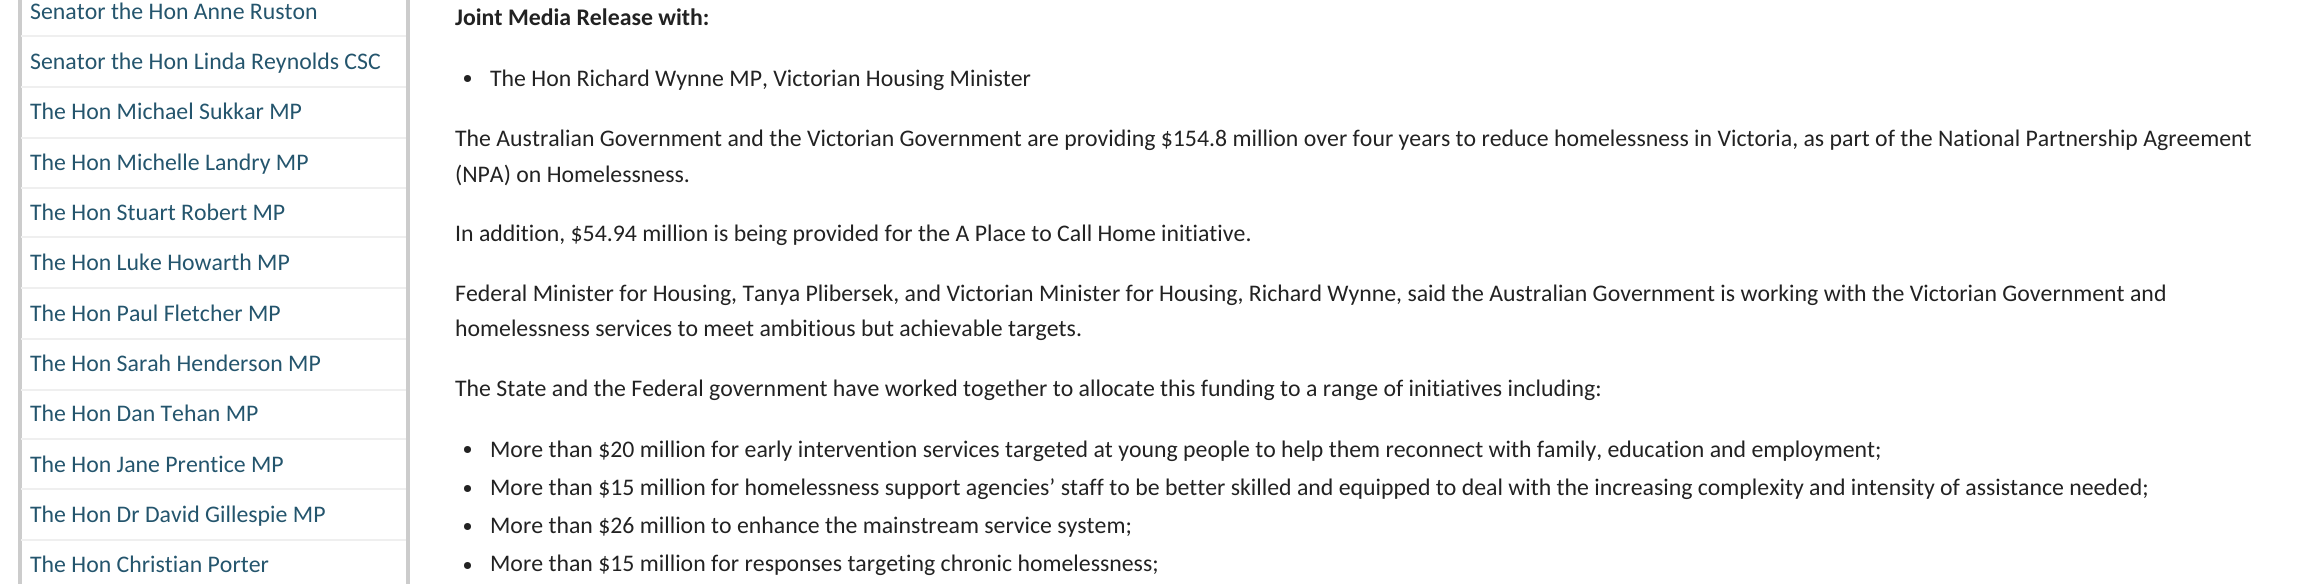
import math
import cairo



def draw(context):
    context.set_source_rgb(1, 1, 1)
    context.paint()
    context.set_source_rgb(204 / 255, 204 / 255, 204 / 255)
    context.rectangle(406, 0, 4, 584)
    context.fill()
    context.rectangle(18, 0, 4, 584)
    context.fill()
    context.set_source_rgb(239 / 255, 239 / 255, 239 / 255)
    context.rectangle(21, 35, 385, 2)
    context.fill()
    context.rectangle(21, 86, 385, 2)
    context.fill()
    context.rectangle(21, 137, 385, 2)
    context.fill()
    context.rectangle(21, 187, 385, 2)
    context.fill()
    context.rectangle(21, 236, 385, 2)
    context.fill()
    context.rectangle(21, 287, 385, 2)
    context.fill()
    context.rectangle(21, 338, 385, 2)
    context.fill()
    context.rectangle(21, 389, 385, 2)
    context.fill()
    context.rectangle(21, 438, 385, 2)
    context.fill()
    context.rectangle(21, 488, 385, 2)
    context.fill()
    context.rectangle(21, 539, 385, 2)
    context.fill()
    context.set_source_rgb(34 / 255, 34 / 255, 34 / 255)
    context.arc(467.5, 78.5, 3.5, 0, 2 * math.pi)
    context.fill()
    context.arc(467.5, 449.5, 3.5, 0, 2 * math.pi)
    context.fill()
    context.arc(467.5, 488.5, 3.5, 0, 2 * math.pi)
    context.fill()
    context.arc(467.5, 526.5, 3.5, 0, 2 * math.pi)
    context.fill()
    context.arc(467.5, 565.5, 3.5, 0, 2 * math.pi)
    context.fill()
    context.select_font_face("Carlito")
    context.set_font_size(23.8)
    context.set_source_rgb(36 / 255, 85 / 255, 109 / 255)
    context.move_to(30, 19)
    context.show_text("Senator the Hon Anne Ruston")
    context.move_to(30, 69)
    context.show_text("Senator the Hon Linda Reynolds CSC")
    context.move_to(30, 119)
    context.show_text("The Hon Michael Sukkar MP")
    context.move_to(30, 170)
    context.show_text("The Hon Michelle Landry MP")
    context.move_to(30, 220)
    context.show_text("The Hon Stuart Robert MP")
    context.move_to(30, 270)
    context.show_text("The Hon Luke Howarth MP")
    context.move_to(30, 321)
    context.show_text("The Hon Paul Fletcher MP")
    context.move_to(30, 371)
    context.show_text("The Hon Sarah Henderson MP")
    context.move_to(30, 421)
    context.show_text("The Hon Dan Tehan MP")
    context.move_to(30, 472)
    context.show_text("The Hon Jane Prentice MP")
    context.move_to(30, 522)
    context.show_text("The Hon Dr David Gillespie MP")
    context.move_to(30, 572)
    context.show_text("The Hon Christian Porter")
    context.select_font_face("Carlito", cairo.FontSlant.NORMAL, cairo.FontWeight.BOLD)
    context.set_source_rgb(34 / 255, 34 / 255, 34 / 255)
    context.move_to(455, 25)
    context.show_text("Joint Media Release with:")
    context.select_font_face("Carlito")
    context.move_to(490, 86)
    context.show_text("The Hon Richard Wynne MP, Victorian Housing Minister")
    context.move_to(455, 146)
    context.show_text("The Australian Government and the Victorian Government are providing $154.8 million over four years to reduce homelessness in Victoria, as part of the National Partnership Agreement")
    context.move_to(455, 182)
    context.show_text("(NPA) on Homelessness.")
    context.move_to(455, 241)
    context.show_text("In addition, $54.94 million is being provided for the A Place to Call Home initiative.")
    context.move_to(455, 301)
    context.show_text("Federal Minister for Housing, Tanya Plibersek, and Victorian Minister for Housing, Richard Wynne, said the Australian Government is working with the Victorian Government and")
    context.move_to(455, 336)
    context.show_text("homelessness services to meet ambitious but achievable targets.")
    context.move_to(455, 396)
    context.show_text("The State and the Federal government have worked together to allocate this funding to a range of initiatives including:")
    context.move_to(490, 457)
    context.show_text("More than $20 million for early intervention services targeted at young people to help them reconnect with family, education and employment;")
    context.move_to(490, 495)
    context.show_text("More than $15 million for homelessness support agencies’ staff to be better skilled and equipped to deal with the increasing complexity and intensity of assistance needed;")
    context.move_to(490, 533)
    context.show_text("More than $26 million to enhance the mainstream service system;")
    context.move_to(490, 571)
    context.show_text("More than $15 million for responses targeting chronic homelessness;")


surface = cairo.ImageSurface(cairo.Format.RGB24, 2318, 584)
context = cairo.Context(surface)
options = cairo.FontOptions()
options.set_hint_metrics(cairo.HintMetrics.OFF)
options.set_hint_style(cairo.HintStyle.NONE)
context.set_font_options(options)
context.set_miter_limit(4)
draw(context)
surface.write_to_png("out.png")
